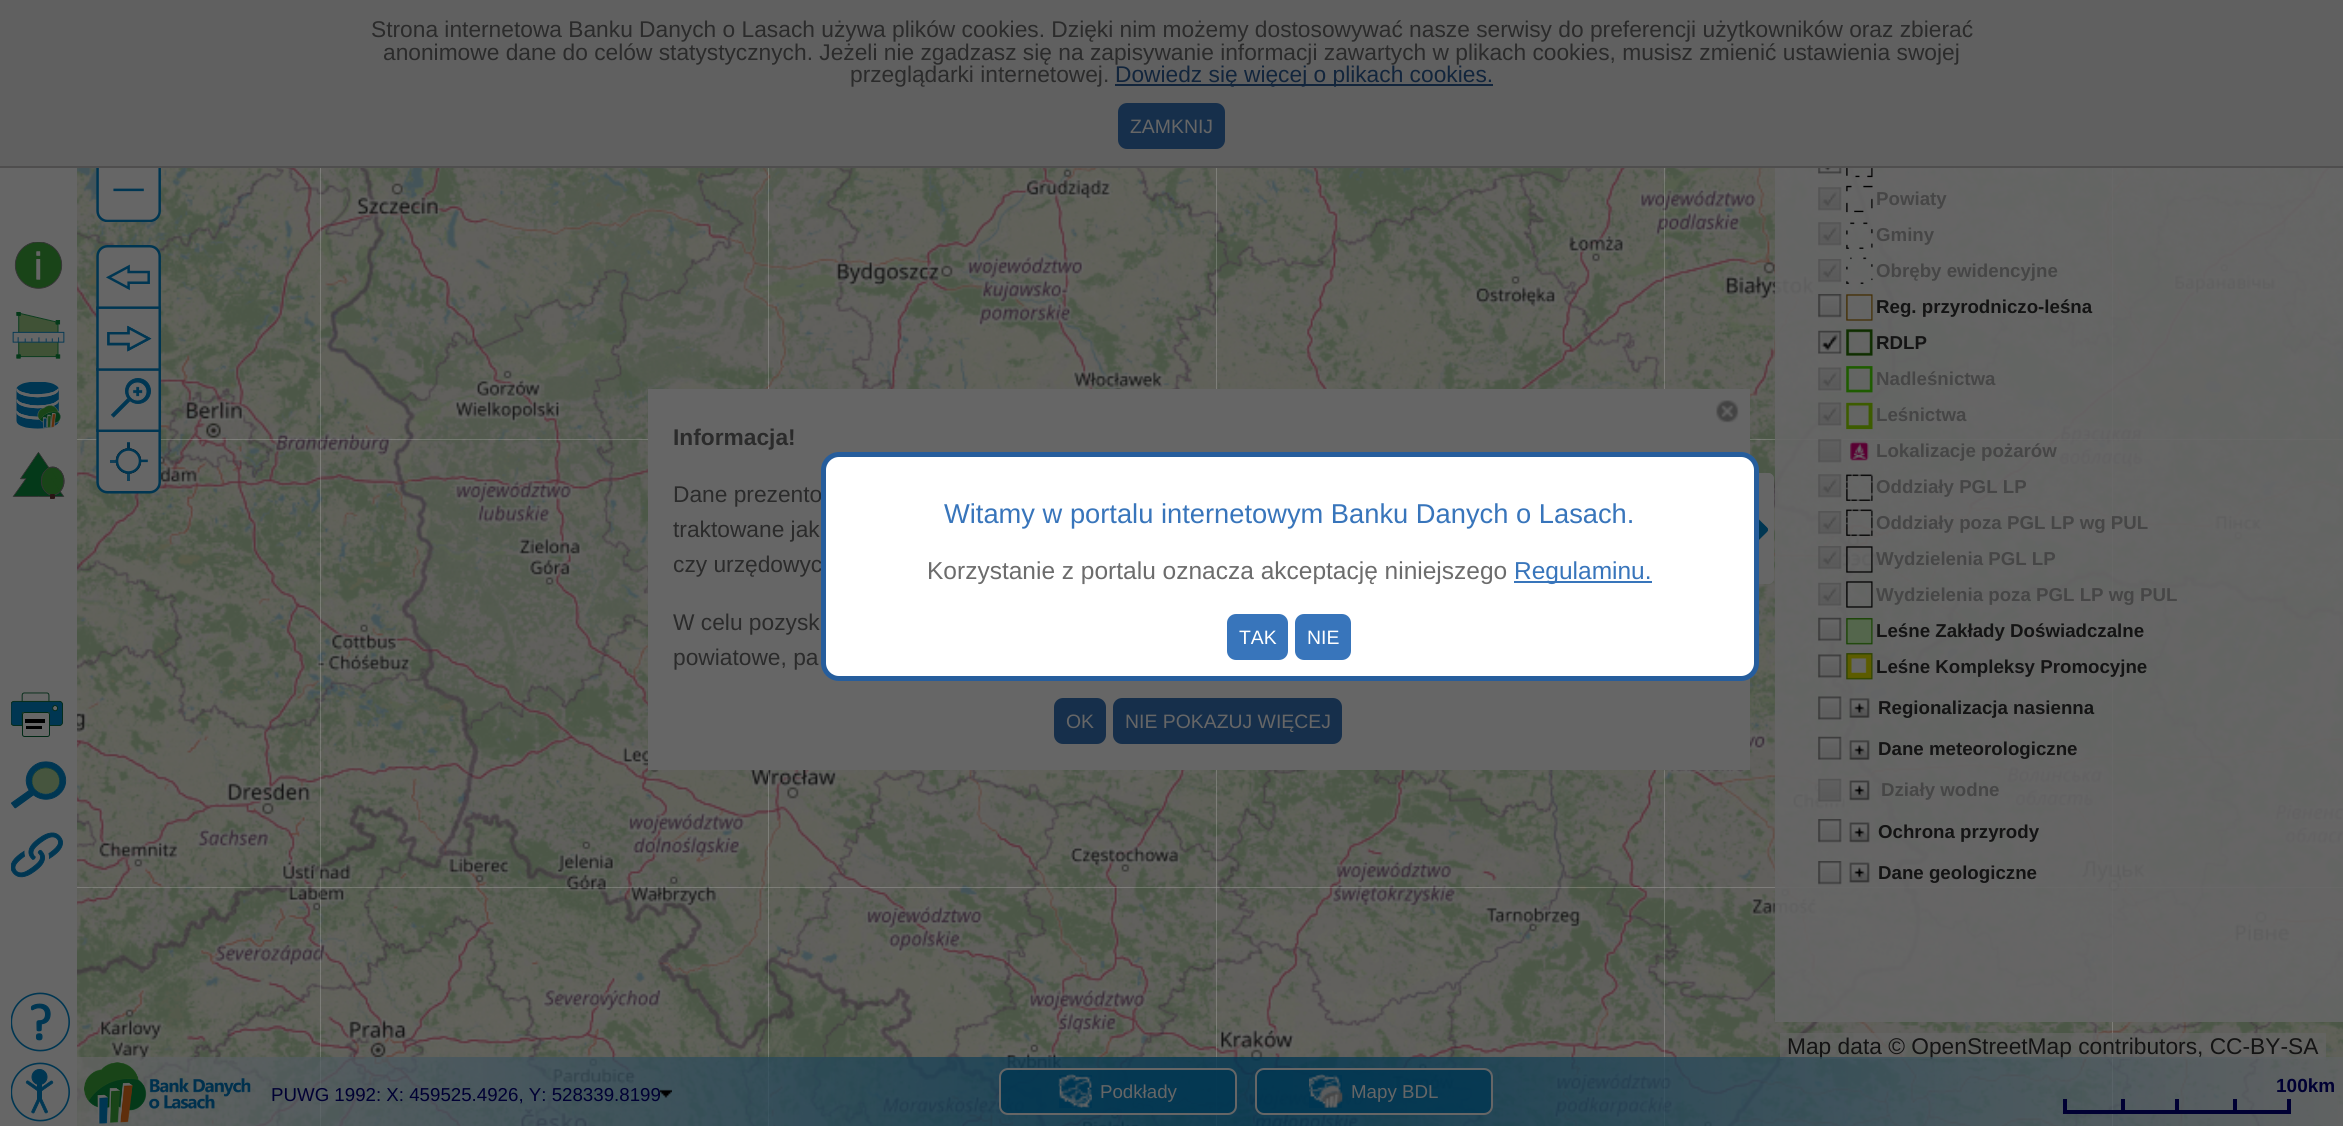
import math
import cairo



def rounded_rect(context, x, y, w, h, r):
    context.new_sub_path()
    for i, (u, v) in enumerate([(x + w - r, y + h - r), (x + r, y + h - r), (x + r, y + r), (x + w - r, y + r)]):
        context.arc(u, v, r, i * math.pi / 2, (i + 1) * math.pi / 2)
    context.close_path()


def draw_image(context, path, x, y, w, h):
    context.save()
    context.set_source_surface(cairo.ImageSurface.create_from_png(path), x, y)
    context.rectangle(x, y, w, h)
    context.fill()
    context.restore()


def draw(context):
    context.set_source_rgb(1, 1, 1)
    context.paint()
    context.set_source_rgb(96 / 255, 96 / 255, 96 / 255)
    context.rectangle(0, 0, 2343, 166)
    context.fill()
    context.set_source_rgb(79 / 255, 78 / 255, 78 / 255)
    context.rectangle(0, 166, 2343, 2)
    context.fill()
    context.set_source_rgb(18 / 255, 37 / 255, 60 / 255)
    context.rectangle(1115, 84, 378, 2)
    context.fill()
    context.set_source_rgb(22 / 255, 47 / 255, 75 / 255)
    rounded_rect(context, 1118, 103, 107, 46, 9)
    context.fill()
    context.set_source_rgb(102 / 255, 102 / 255, 102 / 255)
    context.rectangle(0, 168, 77, 958)
    context.fill()
    draw_image(context, "images/1.png", 14, 242, 49, 47)
    draw_image(context, "images/2.png", 12, 312, 53, 47)
    draw_image(context, "images/3.png", 16, 382, 45, 47)
    draw_image(context, "images/4.png", 12, 452, 53, 47)
    draw_image(context, "images/5.png", 11, 692, 52, 45)
    draw_image(context, "images/6.png", 11, 761, 56, 48)
    draw_image(context, "images/7.png", 11, 832, 52, 46)
    draw_image(context, "images/8.png", 11, 992, 59, 60)
    draw_image(context, "images/9.png", 11, 1062, 59, 60)
    draw_image(context, "images/54.png", 77, 168, 244, 272)
    draw_image(context, "images/60.png", 77, 439, 244, 449)
    draw_image(context, "images/55.png", 320, 168, 449, 272)
    draw_image(context, "images/56.png", 768, 168, 449, 221)
    draw_image(context, "images/57.png", 1216, 168, 449, 221)
    draw_image(context, "images/58.png", 1664, 168, 449, 272)
    draw_image(context, "images/66.png", 77, 887, 244, 239)
    draw_image(context, "images/61.png", 320, 439, 449, 449)
    draw_image(context, "images/67.png", 320, 887, 449, 239)
    draw_image(context, "images/62.png", 768, 770, 449, 118)
    draw_image(context, "images/68.png", 768, 887, 449, 239)
    draw_image(context, "images/63.png", 1216, 770, 449, 118)
    draw_image(context, "images/69.png", 1216, 887, 449, 239)
    draw_image(context, "images/64.png", 1664, 439, 449, 449)
    draw_image(context, "images/59.png", 2112, 168, 231, 272)
    draw_image(context, "images/70.png", 1664, 887, 449, 239)
    draw_image(context, "images/65.png", 2112, 439, 231, 449)
    draw_image(context, "images/71.png", 2112, 887, 231, 239)
    context.set_source_rgba(102 / 255, 102 / 255, 102 / 255, 0.9)
    context.rectangle(1775, 168, 568, 854)
    context.fill()
    draw_image(context, "images/10.png", 1818, 168, 24, 6)
    draw_image(context, "images/11.png", 1846, 168, 27, 10)
    draw_image(context, "images/12.png", 1818, 187, 25, 24)
    draw_image(context, "images/13.png", 1846, 185, 27, 28)
    draw_image(context, "images/14.png", 1818, 222, 25, 24)
    draw_image(context, "images/15.png", 1846, 222, 27, 27)
    draw_image(context, "images/16.png", 1818, 259, 25, 24)
    draw_image(context, "images/17.png", 1846, 257, 27, 27)
    draw_image(context, "images/18.png", 1818, 294, 24, 24)
    draw_image(context, "images/19.png", 1846, 294, 27, 27)
    draw_image(context, "images/20.png", 1818, 330, 25, 24)
    draw_image(context, "images/21.png", 1846, 329, 27, 27)
    draw_image(context, "images/22.png", 1818, 367, 25, 25)
    draw_image(context, "images/23.png", 1846, 366, 27, 27)
    draw_image(context, "images/24.png", 1818, 402, 25, 25)
    draw_image(context, "images/25.png", 1846, 402, 27, 28)
    draw_image(context, "images/26.png", 1818, 439, 25, 24)
    draw_image(context, "images/27.png", 1850, 441, 19, 20)
    draw_image(context, "images/28.png", 1818, 474, 24, 24)
    draw_image(context, "images/29.png", 1846, 474, 27, 27)
    draw_image(context, "images/30.png", 1818, 511, 25, 25)
    draw_image(context, "images/31.png", 1846, 509, 27, 27)
    draw_image(context, "images/32.png", 1818, 546, 25, 24)
    draw_image(context, "images/33.png", 1846, 546, 27, 27)
    draw_image(context, "images/34.png", 1818, 582, 25, 25)
    draw_image(context, "images/35.png", 1846, 581, 27, 27)
    draw_image(context, "images/36.png", 1818, 617, 25, 25)
    draw_image(context, "images/37.png", 1846, 618, 27, 27)
    draw_image(context, "images/38.png", 1818, 654, 25, 25)
    draw_image(context, "images/39.png", 1846, 653, 27, 27)
    draw_image(context, "images/40.png", 1818, 696, 25, 25)
    draw_image(context, "images/41.png", 1849, 698, 21, 20)
    draw_image(context, "images/42.png", 1818, 736, 24, 24)
    draw_image(context, "images/43.png", 1849, 740, 21, 20)
    draw_image(context, "images/44.png", 1818, 778, 25, 26)
    draw_image(context, "images/45.png", 1849, 780, 21, 21)
    draw_image(context, "images/46.png", 1818, 819, 25, 24)
    draw_image(context, "images/47.png", 1849, 822, 21, 21)
    draw_image(context, "images/48.png", 1818, 861, 24, 24)
    draw_image(context, "images/49.png", 1849, 862, 21, 21)
    draw_image(context, "images/72.png", 96, 168, 65, 54)
    draw_image(context, "images/73.png", 96, 245, 65, 65)
    draw_image(context, "images/76.png", 96, 429, 65, 65)
    draw_image(context, "images/75.png", 96, 368, 65, 64)
    draw_image(context, "images/74.png", 96, 306, 65, 65)
    context.set_source_rgba(102 / 255, 102 / 255, 102 / 255, 0.7)
    context.rectangle(1780, 1033, 546, 26)
    context.fill()
    context.set_source_rgb(102 / 255, 102 / 255, 102 / 255)
    context.rectangle(648, 389, 1102, 381)
    context.fill()
    draw_image(context, "images/77.png", 1716, 400, 23, 23)
    context.set_source_rgb(22 / 255, 47 / 255, 75 / 255)
    rounded_rect(context, 1054, 698, 52, 46, 9)
    context.fill()
    rounded_rect(context, 1113, 698, 229, 46, 9)
    context.fill()
    draw_image(context, "images/78.png", 1759, 473, 15, 111)
    context.select_font_face("Liberation Sans")
    context.set_font_size(22.75)
    context.set_source_rgb(43 / 255, 43 / 255, 43 / 255)
    context.move_to(371, 37)
    context.show_text("Strona internetowa Banku Danych o Lasach używa plików cookies. Dzięki nim możemy dostosowywać nasze serwisy do preferencji użytkowników oraz zbierać")
    context.move_to(383, 60)
    context.show_text("anonimowe dane do celów statystycznych. Jeżeli nie zgadzasz się na zapisywanie informacji zawartych w plikach cookies, musisz zmienić ustawienia swojej")
    context.move_to(850, 82)
    context.show_text("przeglądarki internetowej.")
    context.set_source_rgb(18 / 255, 37 / 255, 60 / 255)
    context.move_to(1115, 82)
    context.show_text("Dowiedz się więcej o plikach cookies.")
    context.set_font_size(19.4)
    context.set_source_rgb(102 / 255, 102 / 255, 102 / 255)
    context.move_to(1130, 133)
    context.show_text("ZAMKNIJ")
    context.select_font_face("Liberation Sans", cairo.FontSlant.NORMAL, cairo.FontWeight.BOLD)
    context.set_font_size(18.7)
    context.set_source_rgb(70 / 255, 70 / 255, 70 / 255)
    context.move_to(1876, 205)
    context.show_text("Powiaty")
    context.move_to(1876, 241)
    context.show_text("Gminy")
    context.move_to(1876, 277)
    context.show_text("Obręby ewidencyjne")
    context.set_source_rgb(20 / 255, 20 / 255, 20 / 255)
    context.move_to(1876, 313)
    context.show_text("Reg. przyrodniczo-leśna")
    context.move_to(1876, 349)
    context.show_text("RDLP")
    context.set_source_rgb(70 / 255, 70 / 255, 70 / 255)
    context.move_to(1876, 385)
    context.show_text("Nadleśnictwa")
    context.move_to(1876, 421)
    context.show_text("Leśnictwa")
    context.move_to(1876, 457)
    context.show_text("Lokalizacje pożarów")
    context.move_to(1876, 493)
    context.show_text("Oddziały PGL LP")
    context.move_to(1876, 529)
    context.show_text("Oddziały poza PGL LP wg PUL")
    context.move_to(1876, 565)
    context.show_text("Wydzielenia PGL LP")
    context.move_to(1876, 601)
    context.show_text("Wydzielenia poza PGL LP wg PUL")
    context.set_source_rgb(20 / 255, 20 / 255, 20 / 255)
    context.move_to(1876, 637)
    context.show_text("Leśne Zakłady Doświadczalne")
    context.move_to(1876, 673)
    context.show_text("Leśne Kompleksy Promocyjne")
    context.move_to(1878, 714)
    context.show_text("Regionalizacja nasienna")
    context.move_to(1878, 755)
    context.show_text("Dane meteorologiczne")
    context.set_source_rgb(70 / 255, 70 / 255, 70 / 255)
    context.move_to(1881, 796)
    context.show_text("Działy wodne")
    context.set_source_rgb(20 / 255, 20 / 255, 20 / 255)
    context.move_to(1878, 838)
    context.show_text("Ochrona przyrody")
    context.move_to(1878, 879)
    context.show_text("Dane geologiczne")
    context.select_font_face("Liberation Sans")
    context.set_font_size(22.75)
    context.move_to(1787, 1054)
    context.show_text("Map data © OpenStreetMap contributors, CC-BY-SA")
    gradient = cairo.LinearGradient(70, 1092, 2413, 1092)
    gradient.add_color_stop_rgba(0, 102 / 255, 101 / 255, 101 / 255, 0.7)
    gradient.add_color_stop_rgba(0.45, 10 / 255, 59 / 255, 84 / 255, 0.8)
    gradient.add_color_stop_rgba(0.5, 0, 54 / 255, 82 / 255, 0.8)
    gradient.add_color_stop_rgba(0.55, 10 / 255, 59 / 255, 84 / 255, 0.8)
    gradient.add_color_stop_rgba(1, 102 / 255, 102 / 255, 102 / 255, 0.7)
    context.set_source(gradient)
    context.rectangle(77, 1057, 2266, 69)
    context.fill()
    draw_image(context, "images/50.png", 84, 1062, 167, 62)
    context.set_source_rgba(0, 54 / 255, 81 / 255, 0.8)
    rounded_rect(context, 1256, 1069, 236, 45, 8)
    context.fill_preserve()
    context.set_source_rgb(102 / 255, 102 / 255, 102 / 255)
    context.stroke()
    context.set_font_size(18.7)
    context.move_to(1351, 1098)
    context.show_text("Mapy BDL")
    context.set_source_rgb(0, 54 / 255, 82 / 255)
    context.rectangle(1309, 1075, 33, 33)
    context.fill()
    draw_image(context, "images/53.png", 1309, 1074, 34, 34)
    context.set_source_rgba(0, 54 / 255, 81 / 255, 0.8)
    rounded_rect(context, 1000, 1069, 236, 45, 8)
    context.fill_preserve()
    context.set_source_rgb(102 / 255, 102 / 255, 102 / 255)
    context.stroke()
    context.move_to(1100, 1098)
    context.show_text("Podkłady")
    context.set_source_rgb(0, 54 / 255, 82 / 255)
    context.rectangle(1059, 1075, 33, 33)
    context.fill()
    draw_image(context, "images/52.png", 1058, 1074, 34, 34)
    draw_image(context, "images/51.png", 659, 1089, 13, 9)
    context.set_source_rgb(0, 0, 51 / 255)
    context.move_to(271, 1101)
    context.show_text("PUWG 1992: X: 459525.4926, Y: 528339.8199")
    context.select_font_face("Liberation Sans", cairo.FontSlant.NORMAL, cairo.FontWeight.BOLD)
    context.set_font_size(19)
    context.move_to(2276, 1092)
    context.show_text("100km")
    context.rectangle(2287, 1099, 4, 14)
    context.fill()
    context.rectangle(2063, 1110, 228, 4)
    context.fill()
    context.rectangle(2063, 1099, 4, 14)
    context.fill()
    context.rectangle(2175, 1099, 4, 11)
    context.fill()
    context.rectangle(2121, 1099, 4, 11)
    context.fill()
    context.rectangle(2233, 1099, 4, 11)
    context.fill()
    context.set_font_size(22.75)
    context.set_source_rgb(43 / 255, 43 / 255, 43 / 255)
    context.move_to(673, 445)
    context.show_text("Informacja!")
    context.select_font_face("Liberation Sans")
    context.move_to(673, 502)
    context.show_text("Dane prezento")
    context.move_to(673, 537)
    context.show_text("traktowane jak")
    context.move_to(673, 572)
    context.show_text("czy urzędowyc")
    context.move_to(673, 630)
    context.show_text("W celu pozysk")
    context.move_to(673, 665)
    context.show_text("powiatowe, pa")
    context.set_font_size(19.4)
    context.set_source_rgb(102 / 255, 102 / 255, 102 / 255)
    context.move_to(1066, 728)
    context.show_text("OK")
    context.move_to(1125, 728)
    context.show_text("NIE POKAZUJ WIĘCEJ")
    context.set_source_rgb(1, 1, 1)
    rounded_rect(context, 823.5, 454.5, 933, 224, 15.5)
    context.fill_preserve()
    context.set_source_rgb(38 / 255, 93 / 255, 156 / 255)
    context.set_line_width(5)
    context.stroke()
    context.set_font_size(27.3)
    context.set_source_rgb(56 / 255, 117 / 255, 187 / 255)
    context.move_to(944, 523)
    context.show_text("Witamy w portalu internetowym Banku Danych o Lasach.")
    context.set_font_size(24.5)
    context.set_source_rgb(108 / 255, 108 / 255, 108 / 255)
    context.move_to(927, 579)
    context.show_text("Korzystanie z portalu oznacza akceptację niniejszego")
    context.set_source_rgb(56 / 255, 117 / 255, 187 / 255)
    context.rectangle(1514, 581, 138, 2)
    context.fill()
    context.move_to(1514, 579)
    context.show_text("Regulaminu.")
    rounded_rect(context, 1227, 614, 61, 46, 9)
    context.fill()
    context.set_font_size(19.4)
    context.set_source_rgb(1, 1, 1)
    context.move_to(1239, 644)
    context.show_text("TAK")
    context.set_source_rgb(56 / 255, 117 / 255, 187 / 255)
    rounded_rect(context, 1295, 614, 56, 46, 9)
    context.fill()
    context.set_source_rgb(1, 1, 1)
    context.move_to(1307, 644)
    context.show_text("NIE")


surface = cairo.ImageSurface(cairo.Format.RGB24, 2343, 1126)
context = cairo.Context(surface)
options = cairo.FontOptions()
options.set_hint_metrics(cairo.HintMetrics.OFF)
options.set_hint_style(cairo.HintStyle.NONE)
context.set_font_options(options)
context.set_miter_limit(4)
draw(context)
surface.write_to_png("out.png")
